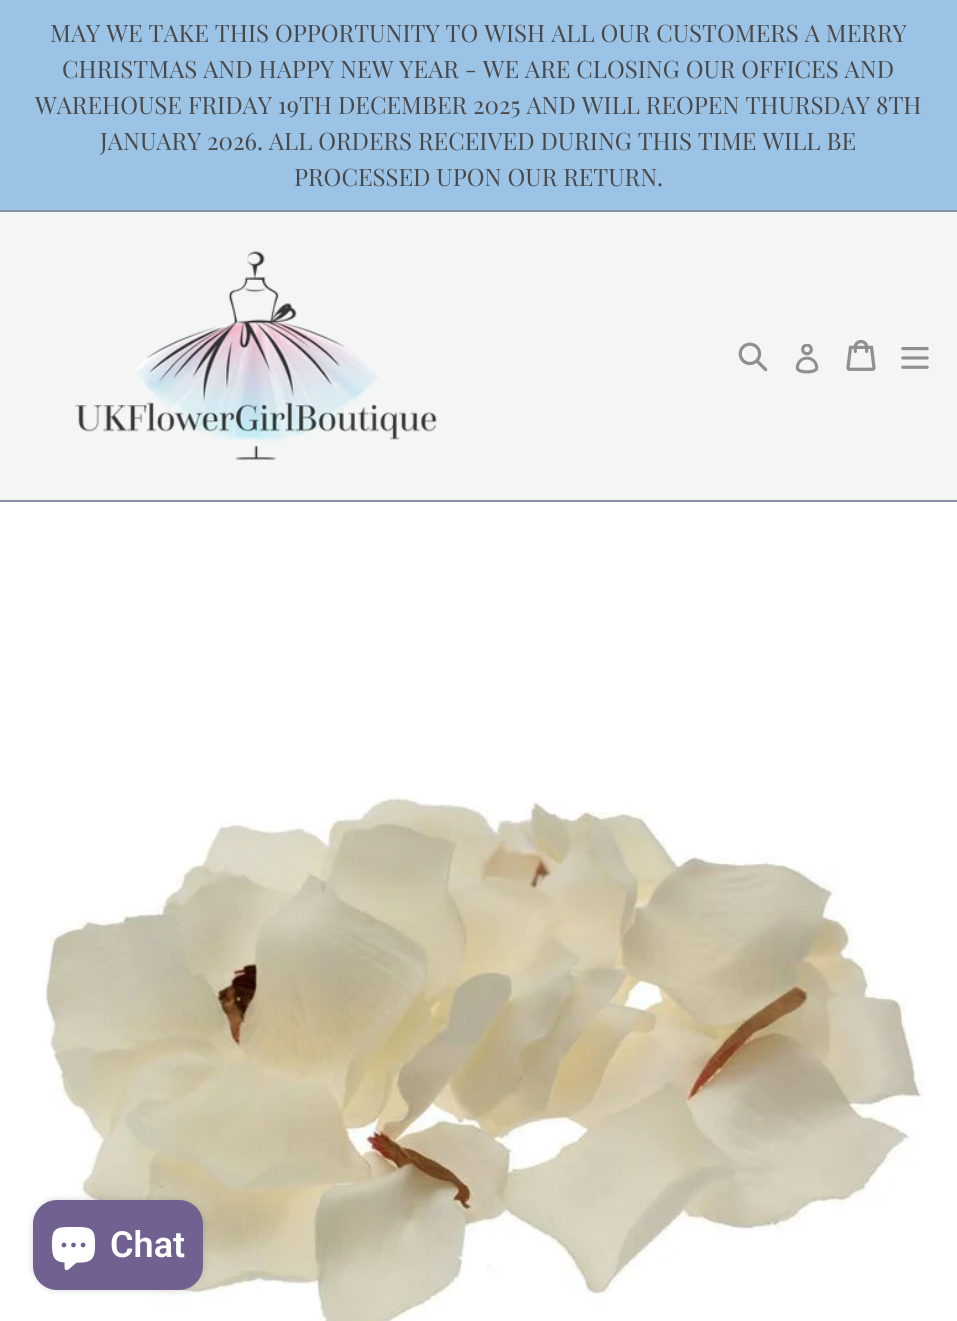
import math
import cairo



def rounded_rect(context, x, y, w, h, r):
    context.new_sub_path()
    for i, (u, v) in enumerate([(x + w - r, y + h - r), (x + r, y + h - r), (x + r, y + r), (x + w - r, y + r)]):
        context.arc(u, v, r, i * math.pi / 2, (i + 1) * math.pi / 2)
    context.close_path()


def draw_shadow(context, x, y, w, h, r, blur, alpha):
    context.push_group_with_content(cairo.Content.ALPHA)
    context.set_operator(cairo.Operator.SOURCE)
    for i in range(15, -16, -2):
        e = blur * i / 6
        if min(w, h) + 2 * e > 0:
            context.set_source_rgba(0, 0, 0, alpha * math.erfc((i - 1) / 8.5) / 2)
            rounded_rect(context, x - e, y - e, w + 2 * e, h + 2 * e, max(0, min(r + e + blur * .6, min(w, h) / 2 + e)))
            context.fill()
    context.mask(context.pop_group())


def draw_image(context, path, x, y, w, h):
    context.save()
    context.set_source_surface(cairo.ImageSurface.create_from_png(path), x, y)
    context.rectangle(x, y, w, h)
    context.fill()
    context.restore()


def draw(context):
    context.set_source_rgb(1, 1, 1)
    context.paint()
    context.set_source_rgb(135 / 255, 145 / 255, 167 / 255)
    context.rectangle(0, 210, 957, 2)
    context.fill()
    context.set_source_rgb(155 / 255, 195 / 255, 230 / 255)
    context.rectangle(0, 0, 957, 210)
    context.fill()
    context.set_source_rgb(244 / 255, 245 / 255, 245 / 255)
    context.rectangle(0, 212, 957, 288)
    context.fill()
    context.set_source_rgb(135 / 255, 145 / 255, 167 / 255)
    context.rectangle(0, 500, 957, 2)
    context.fill()
    draw_image(context, "images/1.png", 75, 251, 362, 209)
    draw_image(context, "images/2.png", 738, 342, 30, 30)
    draw_image(context, "images/3.png", 795, 344, 24, 30)
    draw_image(context, "images/4.png", 846, 340, 30, 31)
    draw_image(context, "images/5.png", 901, 347, 28, 22)
    draw_image(context, "images/6.png", 43, 794, 881, 527)
    context.set_source_rgb(0, 0, 0)
    draw_shadow(context, 33, 1200, 170, 90, 24, 4, 0.15)
    context.set_source_rgb(113 / 255, 97 / 255, 145 / 255)
    rounded_rect(context, 33, 1200, 170, 90, 24)
    context.fill()
    draw_image(context, "images/7.png", 51, 1227, 45, 44)
    context.select_font_face("Playfair Display")
    context.set_font_size(24)
    context.set_source_rgb(73 / 255, 72 / 255, 72 / 255)
    context.move_to(50, 42)
    context.show_text("MAY WE TAKE THIS OPPORTUNITY TO WISH ALL OUR CUSTOMERS A MERRY")
    context.move_to(62, 78)
    context.show_text("CHRISTMAS AND HAPPY NEW YEAR - WE ARE CLOSING OUR OFFICES AND")
    context.move_to(35, 114)
    context.show_text("WAREHOUSE FRIDAY 19TH DECEMBER 2025 AND WILL REOPEN THURSDAY 8TH")
    context.move_to(100, 150)
    context.show_text("JANUARY 2026. ALL ORDERS RECEIVED DURING THIS TIME WILL BE")
    context.move_to(294, 186)
    context.show_text("PROCESSED UPON OUR RETURN.")
    context.select_font_face("Roboto SemiBold")
    context.set_font_size(36)
    context.set_source_rgb(1, 1, 1)
    context.move_to(110, 1257)
    context.show_text("Chat")


surface = cairo.ImageSurface(cairo.Format.RGB24, 957, 1321)
context = cairo.Context(surface)
options = cairo.FontOptions()
options.set_hint_metrics(cairo.HintMetrics.OFF)
options.set_hint_style(cairo.HintStyle.NONE)
context.set_font_options(options)
context.set_miter_limit(4)
draw(context)
surface.write_to_png("out.png")
